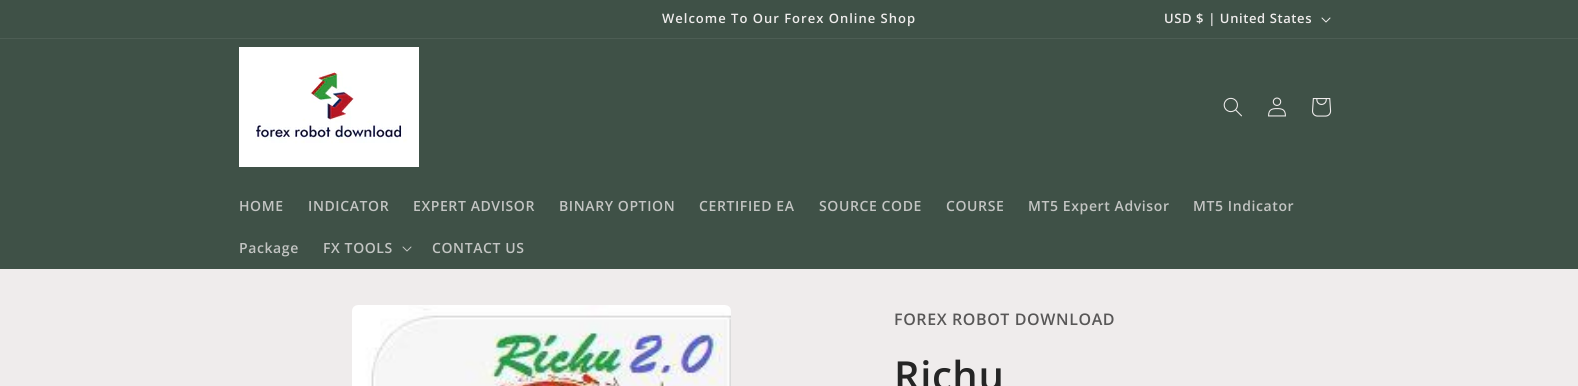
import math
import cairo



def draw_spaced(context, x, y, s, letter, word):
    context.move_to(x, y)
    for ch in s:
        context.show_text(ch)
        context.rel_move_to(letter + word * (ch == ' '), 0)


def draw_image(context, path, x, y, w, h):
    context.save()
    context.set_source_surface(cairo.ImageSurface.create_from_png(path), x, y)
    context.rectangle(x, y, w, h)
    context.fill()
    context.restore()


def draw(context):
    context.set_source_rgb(239 / 255, 236 / 255, 236 / 255)
    context.paint()
    context.set_source_rgb(63 / 255, 81 / 255, 71 / 255)
    context.rectangle(0, 0, 1578, 38)
    context.fill()
    context.set_source_rgb(77 / 255, 93 / 255, 84 / 255)
    context.rectangle(0, 38, 1578, 1)
    context.fill()
    draw_image(context, "images/1.png", 1321, 17, 10, 6)
    context.set_source_rgb(63 / 255, 81 / 255, 71 / 255)
    context.rectangle(0, 39, 1578, 230)
    context.fill()
    draw_image(context, "images/2.png", 239, 47, 180, 120)
    draw_image(context, "images/3.png", 1223, 97, 19, 20)
    draw_image(context, "images/4.png", 1268, 97, 18, 20)
    draw_image(context, "images/5.png", 1312, 98, 20, 19)
    draw_image(context, "images/6.png", 402, 246, 10, 6)
    draw_image(context, "images/7.png", 352, 305, 379, 81)
    context.select_font_face("Open Sans SemiBold")
    context.set_font_size(13)
    context.set_source_rgb(239 / 255, 236 / 255, 236 / 255)
    draw_spaced(context, 662, 23, "Welcome To Our Forex Online Shop", 1, 0)
    draw_spaced(context, 1164, 23, "USD $ | United States", 0.6, 0)
    context.set_font_size(14)
    context.set_source_rgb(195 / 255, 197 / 255, 195 / 255)
    draw_spaced(context, 239, 211, "HOME", 0.6, 0)
    draw_spaced(context, 308, 211, "INDICATOR", 0.6, 0)
    draw_spaced(context, 413, 211, "EXPERT ADVISOR", 0.6, 0)
    draw_spaced(context, 559, 211, "BINARY OPTION", 0.6, 0)
    draw_spaced(context, 699, 211, "CERTIFIED EA", 0.6, 0)
    draw_spaced(context, 819, 211, "SOURCE CODE", 0.6, 0)
    draw_spaced(context, 946, 211, "COURSE", 0.6, 0)
    draw_spaced(context, 1028, 211, "MT5 Expert Advisor", 0.6, 0)
    draw_spaced(context, 1193, 211, "MT5 Indicator", 0.6, 0)
    draw_spaced(context, 239, 253, "Package", 0.6, 0)
    draw_spaced(context, 323, 253, "FX TOOLS", 0.6, 0)
    draw_spaced(context, 432, 253, "CONTACT US", 0.6, 0)
    context.set_font_size(16)
    context.set_source_rgb(88 / 255, 87 / 255, 87 / 255)
    draw_spaced(context, 894, 325, "FOREX ROBOT DOWNLOAD", 0.6, 0)
    context.set_font_size(40)
    context.set_source_rgb(37 / 255, 37 / 255, 37 / 255)
    draw_spaced(context, 894, 390, "Richu", 0.6, 0)


surface = cairo.ImageSurface(cairo.Format.RGB24, 1578, 386)
context = cairo.Context(surface)
options = cairo.FontOptions()
options.set_hint_metrics(cairo.HintMetrics.OFF)
options.set_hint_style(cairo.HintStyle.NONE)
context.set_font_options(options)
context.set_miter_limit(4)
draw(context)
surface.write_to_png("out.png")
